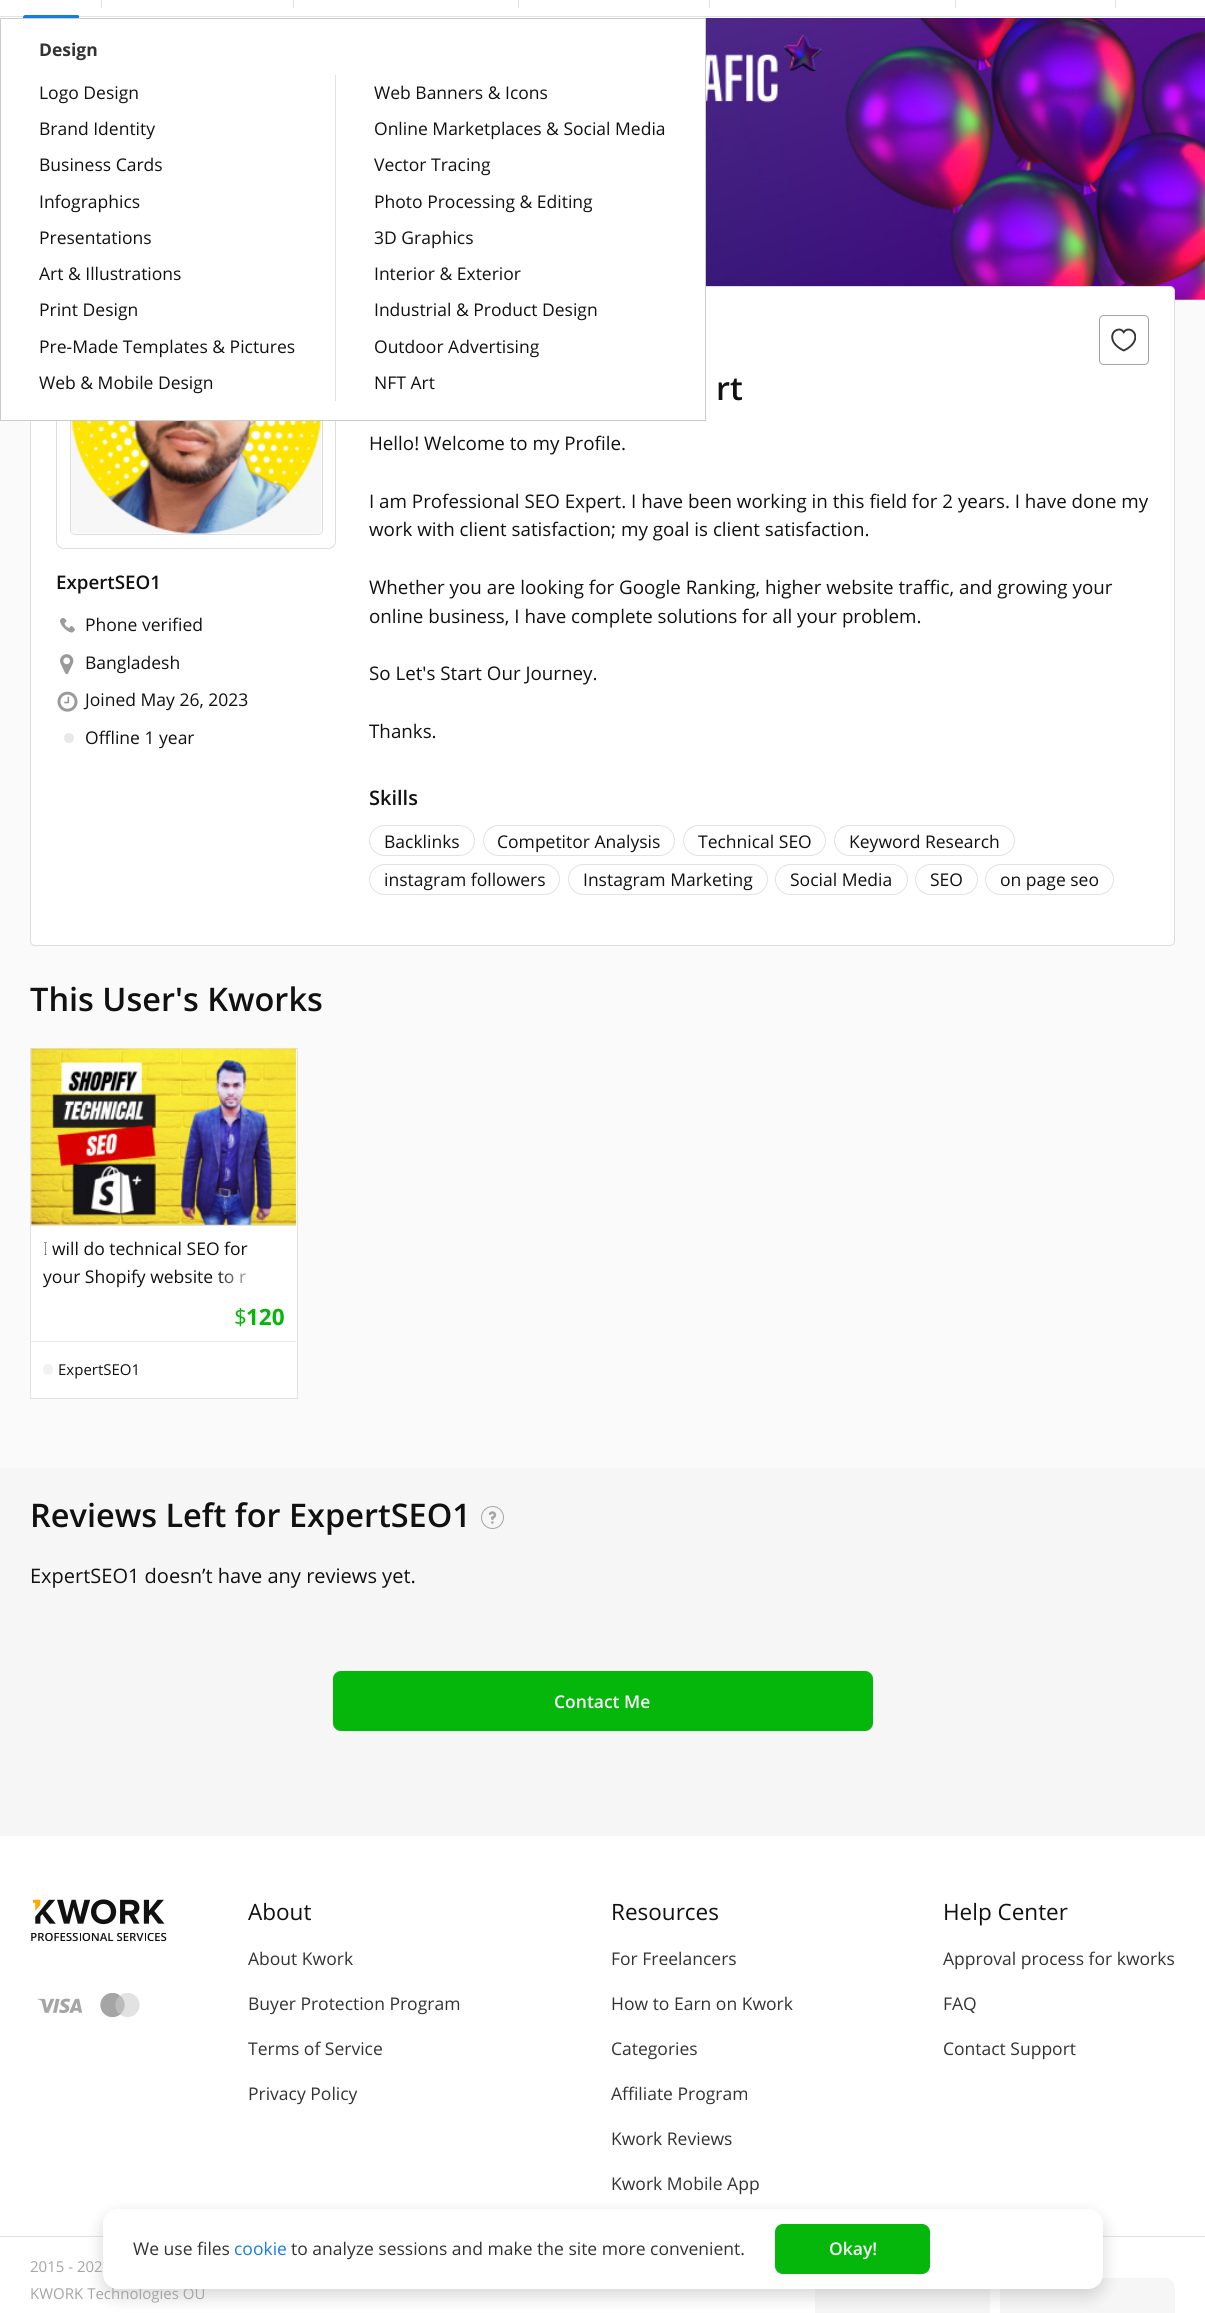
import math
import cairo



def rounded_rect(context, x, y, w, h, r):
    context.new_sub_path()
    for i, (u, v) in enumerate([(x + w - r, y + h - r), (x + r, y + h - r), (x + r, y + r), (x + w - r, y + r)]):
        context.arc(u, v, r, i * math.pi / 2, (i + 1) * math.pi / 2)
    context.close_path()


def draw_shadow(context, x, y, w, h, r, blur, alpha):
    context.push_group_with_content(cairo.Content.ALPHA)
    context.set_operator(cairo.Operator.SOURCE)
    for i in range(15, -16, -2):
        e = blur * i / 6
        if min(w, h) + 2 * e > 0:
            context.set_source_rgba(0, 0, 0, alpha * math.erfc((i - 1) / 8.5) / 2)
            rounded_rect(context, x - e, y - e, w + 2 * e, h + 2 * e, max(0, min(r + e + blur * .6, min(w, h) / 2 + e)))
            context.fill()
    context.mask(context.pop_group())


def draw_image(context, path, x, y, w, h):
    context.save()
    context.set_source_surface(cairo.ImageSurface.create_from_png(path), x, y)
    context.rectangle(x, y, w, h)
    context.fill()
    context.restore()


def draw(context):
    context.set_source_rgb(246 / 255, 246 / 255, 246 / 255)
    context.paint()
    context.set_source_rgb(1, 1, 1)
    context.rectangle(0, 0, 1205, 18)
    context.fill()
    context.set_source_rgb(226 / 255, 226 / 255, 226 / 255)
    context.rectangle(0, 16, 1205, 1)
    context.fill()
    context.rectangle(101, 0, 1, 8)
    context.fill()
    context.rectangle(293, 0, 1, 8)
    context.fill()
    context.rectangle(518, 0, 1, 8)
    context.fill()
    context.rectangle(709, 0, 1, 8)
    context.fill()
    context.rectangle(955, 0, 1, 8)
    context.fill()
    context.rectangle(1115, 0, 1, 8)
    context.fill()
    context.set_source_rgb(23 / 255, 125 / 255, 229 / 255)
    context.new_path()
    context.move_to(25.5, 15)
    context.line_to(77.5, 15)
    context.curve_to(78.5, 15, 79, 15.5, 79, 16.5)
    context.line_to(79, 18)
    context.line_to(23, 18)
    context.line_to(23, 17.5)
    context.curve_to(23, 16, 24, 15, 25.5, 15)
    context.close_path()
    context.fill()
    context.set_source_rgb(250 / 255, 250 / 255, 250 / 255)
    context.rectangle(0, 300, 1205, 1168)
    context.fill()
    draw_image(context, "images/1.png", 706, 18, 499, 282)
    context.set_source_rgb(1, 1, 1)
    rounded_rect(context, 30.5, 286.5, 1144, 659, 4.5)
    context.fill_preserve()
    context.set_source_rgb(221 / 255, 221 / 255, 221 / 255)
    context.set_line_width(1)
    context.stroke()
    context.set_source_rgb(1, 1, 1)
    rounded_rect(context, 56.5, 269.5, 279, 279, 7.5)
    context.fill_preserve()
    context.set_source_rgb(221 / 255, 221 / 255, 221 / 255)
    context.stroke()
    rounded_rect(context, 70.5, 283.5, 252, 251, 4.5)
    context.stroke()
    context.set_source_rgb(1, 1, 1)
    context.rectangle(0.5, 18.5, 705, 402)
    context.fill_preserve()
    context.set_source_rgb(204 / 255, 204 / 255, 204 / 255)
    context.stroke()
    context.set_source_rgb(226 / 255, 226 / 255, 226 / 255)
    context.rectangle(335, 75, 1, 326)
    context.fill()
    rounded_rect(context, 1099.5, 315.5, 49, 49, 4.5)
    context.set_source_rgb(165 / 255, 165 / 255, 165 / 255)
    context.stroke()
    draw_image(context, "images/2.png", 1111, 328, 25, 24)
    draw_image(context, "images/3.png", 71, 421, 251, 113)
    draw_image(context, "images/4.png", 60, 618, 15, 15)
    draw_image(context, "images/5.png", 60, 654, 14, 21)
    draw_image(context, "images/6.png", 57, 691, 21, 21)
    context.set_source_rgb(232 / 255, 232 / 255, 232 / 255)
    context.arc(69, 738, 5, 0, 2 * math.pi)
    context.fill()
    rounded_rect(context, 369.5, 825.5, 105, 30, 15)
    context.set_source_rgb(226 / 255, 226 / 255, 226 / 255)
    context.stroke()
    rounded_rect(context, 483.5, 825.5, 191, 30, 15)
    context.stroke()
    rounded_rect(context, 683.5, 825.5, 142, 30, 15)
    context.stroke()
    rounded_rect(context, 834.5, 825.5, 180, 30, 15)
    context.stroke()
    rounded_rect(context, 369.5, 864.5, 190, 30, 15)
    context.stroke()
    rounded_rect(context, 568.5, 864.5, 199, 30, 15)
    context.stroke()
    rounded_rect(context, 775.5, 864.5, 132, 30, 15)
    context.stroke()
    rounded_rect(context, 915.5, 864.5, 62, 30, 15)
    context.stroke()
    rounded_rect(context, 985.5, 864.5, 128, 30, 15)
    context.stroke()
    context.set_source_rgb(1, 1, 1)
    context.rectangle(30.5, 1048.5, 267, 350)
    context.fill_preserve()
    context.set_source_rgb(226 / 255, 226 / 255, 226 / 255)
    context.stroke()
    context.rectangle(31, 1049, 265, 177)
    context.fill()
    draw_image(context, "images/7.png", 31, 1048, 266, 177)
    context.set_source_rgb(232 / 255, 232 / 255, 232 / 255)
    context.rectangle(31, 1341, 265, 1)
    context.fill()
    context.set_source_rgb(242 / 255, 242 / 255, 242 / 255)
    rounded_rect(context, 43, 1364, 10, 11, 5)
    context.fill()
    context.arc(492.5, 1517.5, 11, 0, 2 * math.pi)
    context.set_source_rgb(165 / 255, 165 / 255, 165 / 255)
    context.stroke()
    draw_image(context, "images/8.png", 488, 1511, 9, 13)
    context.set_source_rgb(4 / 255, 183 / 255, 10 / 255)
    rounded_rect(context, 333.5, 1671.5, 539, 59, 7.5)
    context.fill_preserve()
    context.stroke()
    context.set_source_rgb(1, 1, 1)
    context.rectangle(0, 1836, 1205, 477)
    context.fill()
    draw_image(context, "images/9.png", 33, 1899, 132, 26)
    draw_image(context, "images/10.png", 31, 1933, 136, 8)
    draw_image(context, "images/11.png", 37, 1998, 45, 15)
    draw_image(context, "images/12.png", 100, 1993, 40, 25)
    context.set_source_rgb(226 / 255, 226 / 255, 226 / 255)
    context.rectangle(0, 2236, 1205, 1)
    context.fill()
    context.set_source_rgb(246 / 255, 246 / 255, 246 / 255)
    context.rectangle(815, 2289, 175, 24)
    context.fill()
    rounded_rect(context, 1000, 2278, 175, 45, 10)
    context.fill()
    context.set_source_rgb(0, 0, 0)
    draw_shadow(context, 103, 2216, 1000, 80, 15, 9, 0.16)
    context.select_font_face("Open Sans", cairo.FontSlant.NORMAL, cairo.FontWeight.BOLD)
    context.set_font_size(17.5)
    context.set_source_rgb(51 / 255, 51 / 255, 51 / 255)
    context.move_to(39, 56)
    context.show_text("Design")
    context.select_font_face("Open Sans")
    context.set_source_rgb(17 / 255, 17 / 255, 17 / 255)
    context.move_to(39, 99)
    context.show_text("Logo Design")
    context.move_to(39, 135)
    context.show_text("Brand Identity")
    context.move_to(39, 171)
    context.show_text("Business Cards")
    context.move_to(39, 208)
    context.show_text("Infographics")
    context.move_to(39, 244)
    context.show_text("Presentations")
    context.move_to(39, 280)
    context.show_text("Art & Illustrations")
    context.move_to(39, 316)
    context.show_text("Print Design")
    context.move_to(39, 353)
    context.show_text("Pre-Made Templates & Pictures")
    context.move_to(39, 389)
    context.show_text("Web & Mobile Design")
    context.move_to(374, 99)
    context.show_text("Web Banners & Icons")
    context.move_to(374, 135)
    context.show_text("Online Marketplaces & Social Media")
    context.move_to(374, 171)
    context.show_text("Vector Tracing")
    context.move_to(374, 208)
    context.show_text("Photo Processing & Editing")
    context.move_to(374, 244)
    context.show_text("3D Graphics")
    context.move_to(374, 280)
    context.show_text("Interior & Exterior")
    context.move_to(374, 316)
    context.show_text("Industrial & Product Design")
    context.move_to(374, 353)
    context.show_text("Outdoor Advertising")
    context.move_to(374, 389)
    context.show_text("NFT Art")
    context.select_font_face("Open Sans SemiBold")
    context.set_font_size(18.75)
    context.move_to(56, 589)
    context.show_text("ExpertSEO1")
    context.select_font_face("Open Sans")
    context.set_font_size(17.5)
    context.move_to(85, 631)
    context.show_text("Phone verified")
    context.move_to(85, 669)
    context.show_text("Bangladesh")
    context.move_to(85, 706)
    context.show_text("Joined May 26, 2023")
    context.move_to(85, 744)
    context.show_text("Offline 1 year")
    context.select_font_face("Open Sans SemiBold")
    context.set_font_size(32.5)
    context.move_to(716, 400)
    context.show_text("rt")
    context.select_font_face("Open Sans")
    context.set_font_size(18.75)
    context.move_to(369, 450)
    context.show_text("Hello! Welcome to my Profile.")
    context.move_to(369, 508)
    context.show_text("I am Professional SEO Expert. I have been working in this field for 2 years. I have done my")
    context.move_to(369, 536)
    context.show_text("work with client satisfaction; my goal is client satisfaction.")
    context.move_to(369, 594)
    context.show_text("Whether you are looking for Google Ranking, higher website traffic, and growing your")
    context.move_to(369, 623)
    context.show_text("online business, I have complete solutions for all your problem.")
    context.move_to(369, 680)
    context.show_text("So Let's Start Our Journey.")
    context.move_to(369, 738)
    context.show_text("Thanks.")
    context.select_font_face("Open Sans SemiBold")
    context.set_font_size(20)
    context.move_to(369, 805)
    context.show_text("Skills")
    context.select_font_face("Open Sans")
    context.set_font_size(17.5)
    context.move_to(384, 848)
    context.show_text("Backlinks")
    context.move_to(497, 848)
    context.show_text("Competitor Analysis")
    context.move_to(698, 848)
    context.show_text("Technical SEO")
    context.move_to(849, 848)
    context.show_text("Keyword Research")
    context.move_to(384, 886)
    context.show_text("instagram followers")
    context.move_to(583, 886)
    context.show_text("Instagram Marketing")
    context.move_to(790, 886)
    context.show_text("Social Media")
    context.move_to(930, 886)
    context.show_text("SEO")
    context.move_to(1000, 886)
    context.show_text("on page seo")
    context.select_font_face("Open Sans SemiBold")
    context.set_font_size(32.5)
    context.move_to(30, 1011)
    context.show_text("This User's Kworks")
    context.select_font_face("Noto Sans Thin")
    context.set_font_size(17.5)
    context.move_to(43, 1255)
    context.show_text("I")
    context.select_font_face("Open Sans")
    context.move_to(52, 1255)
    context.show_text("will do technical SEO for")
    context.save()
    context.rectangle(43, 1235, 242, 55)
    context.clip()
    context.move_to(43, 1283)
    context.show_text("your Shopify website to r")
    context.restore()
    gradient = cairo.LinearGradient(215, 1280, 285, 1280)
    gradient.add_color_stop_rgba(0, 1, 1, 1, 0)
    gradient.add_color_stop_rgba(0.7, 1, 1, 1, 1)
    gradient.add_color_stop_rgba(1, 1, 1, 1, 1)
    context.set_source(gradient)
    context.rectangle(217, 1271, 29, 13)
    context.fill()
    context.set_font_size(22.5)
    context.set_source_rgb(4 / 255, 183 / 255, 10 / 255)
    context.move_to(234, 1325)
    context.show_text("$")
    context.select_font_face("Open Sans", cairo.FontSlant.NORMAL, cairo.FontWeight.BOLD)
    context.move_to(246, 1325)
    context.show_text("120")
    context.select_font_face("Open Sans")
    context.set_font_size(15)
    context.set_source_rgb(17 / 255, 17 / 255, 17 / 255)
    context.move_to(58, 1375)
    context.show_text("ExpertSEO1")
    context.select_font_face("Open Sans SemiBold")
    context.set_font_size(32.5)
    context.move_to(30, 1527)
    context.show_text("Reviews Left for ExpertSEO1")
    context.select_font_face("Open Sans")
    context.set_font_size(20)
    context.move_to(30, 1583)
    context.show_text("ExpertSEO1 doesn’t have any reviews yet.")
    context.select_font_face("Open Sans SemiBold")
    context.set_font_size(17.5)
    context.set_source_rgb(1, 1, 1)
    context.move_to(554, 1708)
    context.show_text("Contact Me")
    context.select_font_face("Open Sans")
    context.set_font_size(22.5)
    context.set_source_rgb(17 / 255, 17 / 255, 17 / 255)
    context.move_to(248, 1920)
    context.show_text("About")
    context.set_font_size(17.5)
    context.set_source_rgb(51 / 255, 51 / 255, 51 / 255)
    context.move_to(248, 1965)
    context.show_text("About Kwork")
    context.move_to(248, 2010)
    context.show_text("Buyer Protection Program")
    context.move_to(248, 2055)
    context.show_text("Terms of Service")
    context.move_to(248, 2100)
    context.show_text("Privacy Policy")
    context.set_font_size(22.5)
    context.set_source_rgb(17 / 255, 17 / 255, 17 / 255)
    context.move_to(611, 1920)
    context.show_text("Resources")
    context.set_font_size(17.5)
    context.set_source_rgb(51 / 255, 51 / 255, 51 / 255)
    context.move_to(611, 1965)
    context.show_text("For Freelancers")
    context.move_to(611, 2010)
    context.show_text("How to Earn on Kwork")
    context.move_to(611, 2055)
    context.show_text("Categories")
    context.move_to(611, 2100)
    context.show_text("Affiliate Program")
    context.move_to(611, 2145)
    context.show_text("Kwork Reviews")
    context.move_to(611, 2190)
    context.show_text("Kwork Mobile App")
    context.set_font_size(22.5)
    context.set_source_rgb(17 / 255, 17 / 255, 17 / 255)
    context.move_to(943, 1920)
    context.show_text("Help Center")
    context.set_font_size(17.5)
    context.set_source_rgb(51 / 255, 51 / 255, 51 / 255)
    context.move_to(943, 1965)
    context.show_text("Approval process for kworks")
    context.move_to(943, 2010)
    context.show_text("FAQ")
    context.move_to(943, 2055)
    context.show_text("Contact Support")
    context.set_font_size(15)
    context.set_source_rgb(165 / 255, 165 / 255, 165 / 255)
    context.move_to(30, 2272)
    context.show_text("2015 - 202")
    context.move_to(30, 2299)
    context.show_text("KWORK Technologies OÜ")
    context.set_source_rgb(1, 1, 1)
    rounded_rect(context, 103, 2209, 1000, 80, 15)
    context.fill()
    context.set_font_size(17.5)
    context.set_source_rgb(51 / 255, 51 / 255, 51 / 255)
    context.move_to(133, 2255)
    context.show_text("We use files")
    context.set_source_rgb(23 / 255, 125 / 255, 229 / 255)
    context.move_to(234, 2255)
    context.show_text("cookie")
    context.set_source_rgb(51 / 255, 51 / 255, 51 / 255)
    context.move_to(291, 2255)
    context.show_text("to analyze sessions and make the site more convenient.")
    context.set_source_rgb(4 / 255, 183 / 255, 10 / 255)
    rounded_rect(context, 775.5, 2224.5, 154, 49, 7.5)
    context.fill_preserve()
    context.stroke()
    context.select_font_face("Open Sans SemiBold")
    context.set_source_rgb(1, 1, 1)
    context.move_to(829, 2255)
    context.show_text("Okay!")


surface = cairo.ImageSurface(cairo.Format.RGB24, 1205, 2313)
context = cairo.Context(surface)
options = cairo.FontOptions()
options.set_hint_metrics(cairo.HintMetrics.OFF)
options.set_hint_style(cairo.HintStyle.NONE)
context.set_font_options(options)
context.set_miter_limit(4)
draw(context)
surface.write_to_png("out.png")
